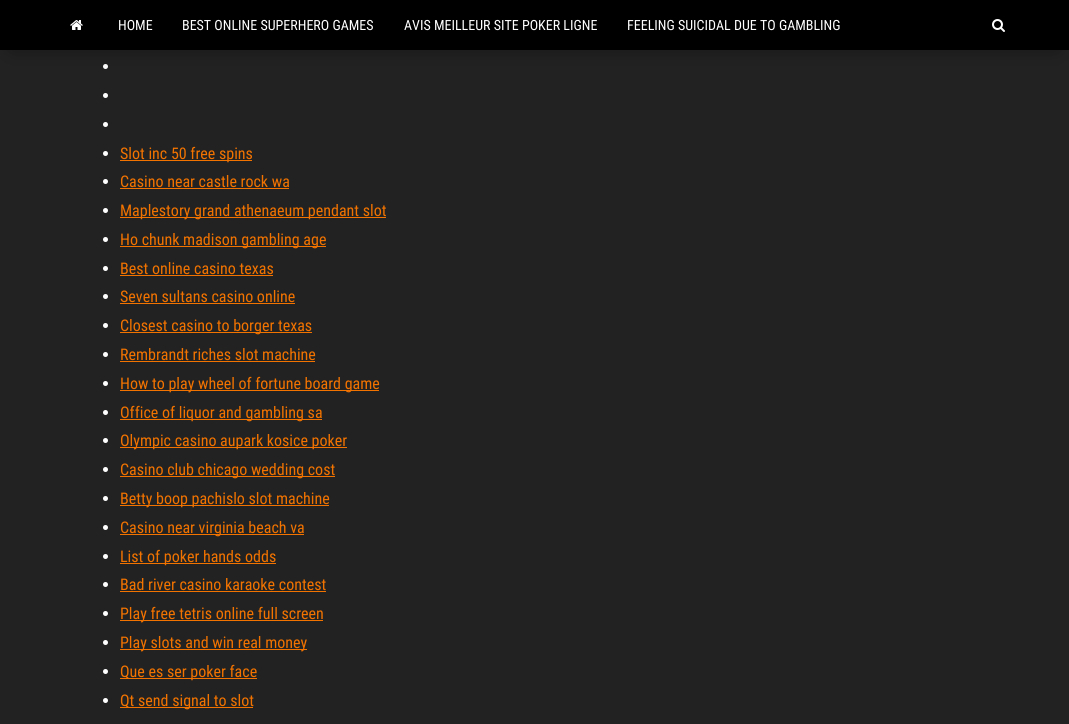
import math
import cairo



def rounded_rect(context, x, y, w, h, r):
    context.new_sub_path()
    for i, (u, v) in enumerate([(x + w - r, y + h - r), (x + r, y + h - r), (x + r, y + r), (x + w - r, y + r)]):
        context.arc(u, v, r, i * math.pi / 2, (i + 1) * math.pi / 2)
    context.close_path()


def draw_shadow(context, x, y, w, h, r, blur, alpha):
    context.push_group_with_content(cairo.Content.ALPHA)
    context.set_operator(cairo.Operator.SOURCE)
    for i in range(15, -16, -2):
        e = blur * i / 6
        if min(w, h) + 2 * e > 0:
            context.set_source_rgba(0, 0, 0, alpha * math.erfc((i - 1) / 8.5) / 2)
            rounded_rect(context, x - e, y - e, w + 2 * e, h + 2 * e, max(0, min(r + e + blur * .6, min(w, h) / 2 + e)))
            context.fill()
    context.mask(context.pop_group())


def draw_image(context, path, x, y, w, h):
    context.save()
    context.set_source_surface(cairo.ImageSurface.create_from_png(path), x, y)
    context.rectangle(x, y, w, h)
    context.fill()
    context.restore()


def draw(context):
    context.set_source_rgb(34 / 255, 34 / 255, 34 / 255)
    context.paint()
    context.set_source_rgb(1, 1, 1)
    context.arc(105.5, 66.5, 2.5, 0, 2 * math.pi)
    context.fill()
    context.set_source_rgb(0, 0, 0)
    draw_shadow(context, 12, 22, 1045, 26, 0, 10, 0.42)
    context.set_source_rgb(0, 0, 0)
    context.rectangle(0, 0, 1069, 50)
    context.fill()
    draw_image(context, "images/1.png", 70, 20, 13, 10)
    draw_image(context, "images/2.png", 992, 19, 13, 13)
    context.set_source_rgb(1, 1, 1)
    context.arc(105.5, 95.5, 2.5, 0, 2 * math.pi)
    context.fill()
    context.arc(105.5, 124.5, 2.5, 0, 2 * math.pi)
    context.fill()
    context.arc(105.5, 153.5, 2.5, 0, 2 * math.pi)
    context.fill()
    context.set_source_rgb(242 / 255, 115 / 255, 0)
    context.rectangle(120, 160, 132, 1)
    context.fill()
    context.set_source_rgb(1, 1, 1)
    context.arc(105.5, 181.5, 2.5, 0, 2 * math.pi)
    context.fill()
    context.set_source_rgb(242 / 255, 115 / 255, 0)
    context.rectangle(120, 188, 169, 1)
    context.fill()
    context.set_source_rgb(1, 1, 1)
    context.arc(105.5, 210.5, 2.5, 0, 2 * math.pi)
    context.fill()
    context.set_source_rgb(242 / 255, 115 / 255, 0)
    context.rectangle(120, 217, 266, 1)
    context.fill()
    context.set_source_rgb(1, 1, 1)
    context.arc(105.5, 239.5, 2.5, 0, 2 * math.pi)
    context.fill()
    context.set_source_rgb(242 / 255, 115 / 255, 0)
    context.rectangle(120, 246, 206, 1)
    context.fill()
    context.set_source_rgb(1, 1, 1)
    context.arc(105.5, 268.5, 2.5, 0, 2 * math.pi)
    context.fill()
    context.set_source_rgb(242 / 255, 115 / 255, 0)
    context.rectangle(120, 275, 153, 1)
    context.fill()
    context.set_source_rgb(1, 1, 1)
    context.arc(105.5, 296.5, 2.5, 0, 2 * math.pi)
    context.fill()
    context.set_source_rgb(242 / 255, 115 / 255, 0)
    context.rectangle(120, 303, 175, 1)
    context.fill()
    context.set_source_rgb(1, 1, 1)
    context.arc(105.5, 325.5, 2.5, 0, 2 * math.pi)
    context.fill()
    context.set_source_rgb(242 / 255, 115 / 255, 0)
    context.rectangle(120, 332, 192, 1)
    context.fill()
    context.set_source_rgb(1, 1, 1)
    context.arc(105.5, 354.5, 2.5, 0, 2 * math.pi)
    context.fill()
    context.set_source_rgb(242 / 255, 115 / 255, 0)
    context.rectangle(120, 361, 195, 1)
    context.fill()
    context.set_source_rgb(1, 1, 1)
    context.arc(105.5, 383.5, 2.5, 0, 2 * math.pi)
    context.fill()
    context.set_source_rgb(242 / 255, 115 / 255, 0)
    context.rectangle(120, 390, 259, 1)
    context.fill()
    context.set_source_rgb(1, 1, 1)
    context.arc(105.5, 412.5, 2.5, 0, 2 * math.pi)
    context.fill()
    context.set_source_rgb(242 / 255, 115 / 255, 0)
    context.rectangle(120, 419, 202, 1)
    context.fill()
    context.set_source_rgb(1, 1, 1)
    context.arc(105.5, 440.5, 2.5, 0, 2 * math.pi)
    context.fill()
    context.set_source_rgb(242 / 255, 115 / 255, 0)
    context.rectangle(120, 447, 227, 1)
    context.fill()
    context.set_source_rgb(1, 1, 1)
    context.arc(105.5, 469.5, 2.5, 0, 2 * math.pi)
    context.fill()
    context.set_source_rgb(242 / 255, 115 / 255, 0)
    context.rectangle(120, 476, 215, 1)
    context.fill()
    context.set_source_rgb(1, 1, 1)
    context.arc(105.5, 498.5, 2.5, 0, 2 * math.pi)
    context.fill()
    context.set_source_rgb(242 / 255, 115 / 255, 0)
    context.rectangle(120, 505, 209, 1)
    context.fill()
    context.set_source_rgb(1, 1, 1)
    context.arc(105.5, 527.5, 2.5, 0, 2 * math.pi)
    context.fill()
    context.set_source_rgb(242 / 255, 115 / 255, 0)
    context.rectangle(120, 534, 184, 1)
    context.fill()
    context.set_source_rgb(1, 1, 1)
    context.arc(105.5, 556.5, 2.5, 0, 2 * math.pi)
    context.fill()
    context.set_source_rgb(242 / 255, 115 / 255, 0)
    context.rectangle(120, 563, 156, 1)
    context.fill()
    context.set_source_rgb(1, 1, 1)
    context.arc(105.5, 584.5, 2.5, 0, 2 * math.pi)
    context.fill()
    context.set_source_rgb(242 / 255, 115 / 255, 0)
    context.rectangle(120, 591, 206, 1)
    context.fill()
    context.set_source_rgb(1, 1, 1)
    context.arc(105.5, 613.5, 2.5, 0, 2 * math.pi)
    context.fill()
    context.set_source_rgb(242 / 255, 115 / 255, 0)
    context.rectangle(120, 620, 203, 1)
    context.fill()
    context.set_source_rgb(1, 1, 1)
    context.arc(105.5, 642.5, 2.5, 0, 2 * math.pi)
    context.fill()
    context.set_source_rgb(242 / 255, 115 / 255, 0)
    context.rectangle(120, 649, 187, 1)
    context.fill()
    context.set_source_rgb(1, 1, 1)
    context.arc(105.5, 671.5, 2.5, 0, 2 * math.pi)
    context.fill()
    context.set_source_rgb(242 / 255, 115 / 255, 0)
    context.rectangle(120, 678, 137, 1)
    context.fill()
    context.set_source_rgb(1, 1, 1)
    context.arc(105.5, 700.5, 2.5, 0, 2 * math.pi)
    context.fill()
    context.set_source_rgb(242 / 255, 115 / 255, 0)
    context.rectangle(120, 707, 133, 1)
    context.fill()
    context.select_font_face("Roboto Condensed")
    context.set_font_size(14)
    context.set_source_rgb(1, 1, 1)
    context.move_to(118, 30)
    context.show_text("HOME")
    context.move_to(182, 30)
    context.show_text("BEST ONLINE SUPERHERO GAMES")
    context.move_to(404, 30)
    context.show_text("AVIS MEILLEUR SITE POKER LIGNE")
    context.move_to(627, 30)
    context.show_text("FEELING SUICIDAL DUE TO GAMBLING")
    context.set_font_size(16)
    context.set_source_rgb(242 / 255, 115 / 255, 0)
    context.move_to(120, 159)
    context.show_text("Slot inc 50 free spins")
    context.move_to(120, 187)
    context.show_text("Casino near castle rock wa")
    context.move_to(120, 216)
    context.show_text("Maplestory grand athenaeum pendant slot")
    context.move_to(120, 245)
    context.show_text("Ho chunk madison gambling age")
    context.move_to(120, 274)
    context.show_text("Best online casino texas")
    context.move_to(120, 302)
    context.show_text("Seven sultans casino online")
    context.move_to(120, 331)
    context.show_text("Closest casino to borger texas")
    context.move_to(120, 360)
    context.show_text("Rembrandt riches slot machine")
    context.move_to(120, 389)
    context.show_text("How to play wheel of fortune board game")
    context.move_to(120, 418)
    context.show_text("Office of liquor and gambling sa")
    context.move_to(120, 446)
    context.show_text("Olympic casino aupark kosice poker")
    context.move_to(120, 475)
    context.show_text("Casino club chicago wedding cost")
    context.move_to(120, 504)
    context.show_text("Betty boop pachislo slot machine")
    context.move_to(120, 533)
    context.show_text("Casino near virginia beach va")
    context.move_to(120, 562)
    context.show_text("List of poker hands odds")
    context.move_to(120, 590)
    context.show_text("Bad river casino karaoke contest")
    context.move_to(120, 619)
    context.show_text("Play free tetris online full screen")
    context.move_to(120, 648)
    context.show_text("Play slots and win real money")
    context.move_to(120, 677)
    context.show_text("Que es ser poker face")
    context.move_to(120, 706)
    context.show_text("Qt send signal to slot")


surface = cairo.ImageSurface(cairo.Format.RGB24, 1069, 724)
context = cairo.Context(surface)
options = cairo.FontOptions()
options.set_hint_metrics(cairo.HintMetrics.OFF)
options.set_hint_style(cairo.HintStyle.NONE)
context.set_font_options(options)
context.set_miter_limit(4)
draw(context)
surface.write_to_png("out.png")
